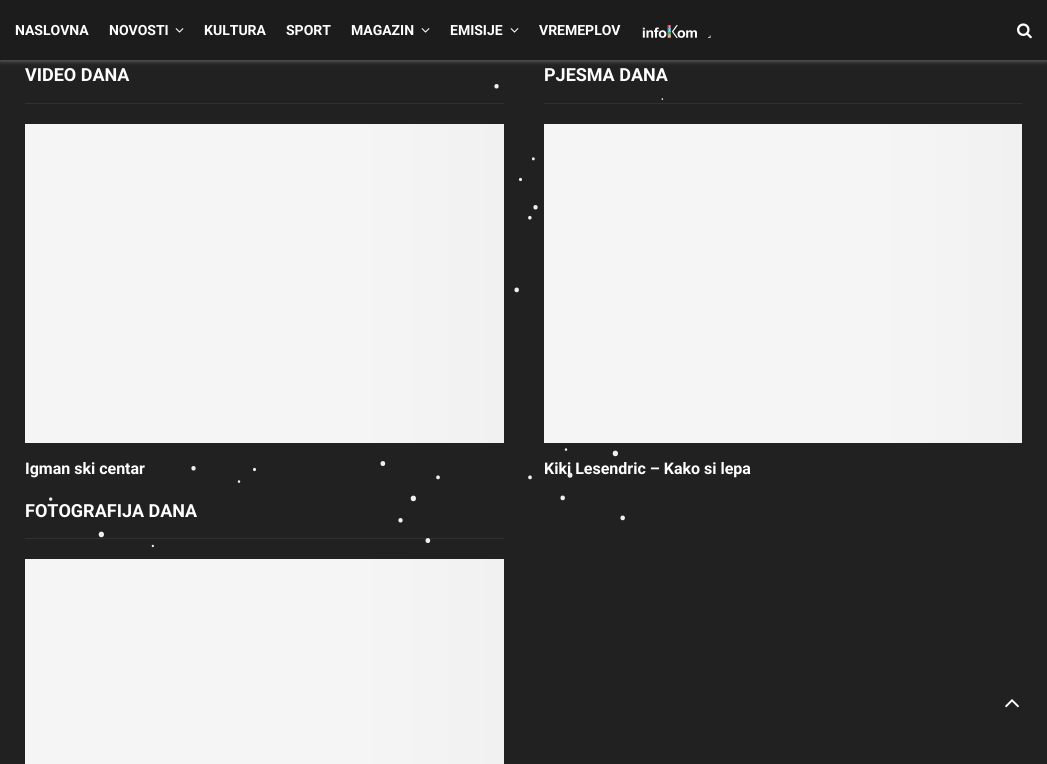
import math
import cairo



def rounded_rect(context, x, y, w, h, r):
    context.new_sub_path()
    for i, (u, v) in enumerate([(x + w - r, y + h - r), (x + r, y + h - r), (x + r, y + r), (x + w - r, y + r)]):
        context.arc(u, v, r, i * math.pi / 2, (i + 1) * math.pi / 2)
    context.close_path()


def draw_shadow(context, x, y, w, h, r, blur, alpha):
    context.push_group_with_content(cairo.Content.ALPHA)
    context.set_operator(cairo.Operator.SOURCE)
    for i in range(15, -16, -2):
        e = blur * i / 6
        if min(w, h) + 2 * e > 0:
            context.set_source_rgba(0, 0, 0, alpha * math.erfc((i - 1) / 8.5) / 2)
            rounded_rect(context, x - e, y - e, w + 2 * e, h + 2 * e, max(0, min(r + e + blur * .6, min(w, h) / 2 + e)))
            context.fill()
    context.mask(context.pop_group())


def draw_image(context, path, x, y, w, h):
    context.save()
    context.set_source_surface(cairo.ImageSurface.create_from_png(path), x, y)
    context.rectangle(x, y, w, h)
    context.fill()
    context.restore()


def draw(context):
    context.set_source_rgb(33 / 255, 33 / 255, 33 / 255)
    context.paint()
    context.set_source_rgb(190 / 255, 190 / 255, 190 / 255)
    draw_shadow(context, 0, 1, 1047, 60, 0, 2.5, 0.46)
    context.set_source_rgb(28 / 255, 28 / 255, 28 / 255)
    context.rectangle(0, 0, 1047, 60)
    context.fill()
    draw_image(context, "images/1.png", 175, 28, 9, 5)
    draw_image(context, "images/1.png", 421, 28, 9, 5)
    draw_image(context, "images/1.png", 510, 28, 9, 5)
    draw_image(context, "images/2.png", 642, 25, 55, 13)
    draw_image(context, "images/3.png", 1017, 23, 15, 16)
    context.set_source_rgb(49 / 255, 49 / 255, 49 / 255)
    context.rectangle(25, 103, 479, 1)
    context.fill()
    gradient = cairo.LinearGradient(715, 284, -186, 284)
    gradient.add_color_stop_rgba(0, 245 / 255, 245 / 255, 245 / 255, 1)
    gradient.add_color_stop_rgba(0.15, 239 / 255, 239 / 255, 239 / 255, 1)
    gradient.add_color_stop_rgba(0.4, 245 / 255, 245 / 255, 245 / 255, 1)
    gradient.add_color_stop_rgba(1, 245 / 255, 245 / 255, 245 / 255, 1)
    context.set_source(gradient)
    context.rectangle(25, 124, 479, 319)
    context.fill()
    context.set_source_rgb(49 / 255, 49 / 255, 49 / 255)
    context.rectangle(544, 103, 478, 1)
    context.fill()
    gradient = cairo.LinearGradient(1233, 284, 333, 284)
    gradient.add_color_stop_rgba(0, 245 / 255, 245 / 255, 245 / 255, 1)
    gradient.add_color_stop_rgba(0.15, 239 / 255, 239 / 255, 239 / 255, 1)
    gradient.add_color_stop_rgba(0.4, 245 / 255, 245 / 255, 245 / 255, 1)
    gradient.add_color_stop_rgba(1, 245 / 255, 245 / 255, 245 / 255, 1)
    context.set_source(gradient)
    context.rectangle(544, 124, 478, 319)
    context.fill()
    context.set_source_rgb(49 / 255, 49 / 255, 49 / 255)
    context.rectangle(25, 538, 479, 1)
    context.fill()
    gradient = cairo.LinearGradient(715, 719, -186, 719)
    gradient.add_color_stop_rgba(0, 245 / 255, 245 / 255, 245 / 255, 1)
    gradient.add_color_stop_rgba(0.15, 239 / 255, 239 / 255, 239 / 255, 1)
    gradient.add_color_stop_rgba(0.4, 245 / 255, 245 / 255, 245 / 255, 1)
    gradient.add_color_stop_rgba(1, 245 / 255, 245 / 255, 245 / 255, 1)
    context.set_source(gradient)
    context.rectangle(25, 559, 479, 205)
    context.fill()
    draw_image(context, "images/4.png", 1005, 699, 14, 9)
    context.select_font_face("Roboto", cairo.FontSlant.NORMAL, cairo.FontWeight.BOLD)
    context.set_font_size(14)
    context.set_source_rgb(1, 1, 1)
    context.move_to(15, 35)
    context.show_text("NASLOVNA")
    context.move_to(109, 35)
    context.show_text("NOVOSTI")
    context.move_to(204, 35)
    context.show_text("KULTURA")
    context.move_to(286, 35)
    context.show_text("SPORT")
    context.move_to(351, 35)
    context.show_text("MAGAZIN")
    context.move_to(450, 35)
    context.show_text("EMISIJE")
    context.move_to(539, 35)
    context.show_text("VREMEPLOV")
    context.select_font_face("Liberation Sans", cairo.FontSlant.NORMAL, cairo.FontWeight.BOLD)
    context.move_to(707, 35)
    context.show_text("˼")
    context.select_font_face("Roboto", cairo.FontSlant.NORMAL, cairo.FontWeight.BOLD)
    context.set_font_size(18)
    context.move_to(25, 81)
    context.show_text("VIDEO DANA")
    context.set_font_size(16)
    context.move_to(25, 474)
    context.show_text("Igman ski centar")
    context.set_font_size(18)
    context.move_to(544, 81)
    context.show_text("PJESMA DANA")
    context.set_font_size(16)
    context.move_to(544, 474)
    context.show_text("Kiki Lesendric – Kako si lepa")
    context.set_font_size(18)
    context.move_to(25, 517)
    context.show_text("FOTOGRAFIJA DANA")
    context.select_font_face("Roboto")
    context.set_font_size(21)
    context.set_source_rgb(239 / 255, 239 / 255, 239 / 255)
    context.move_to(493, 94)
    context.show_text("•")
    context.set_font_size(8)
    context.move_to(661, 102)
    context.show_text("•")
    context.set_font_size(14)
    context.move_to(531, 164)
    context.show_text("•")
    context.set_font_size(15)
    context.move_to(518, 185)
    context.show_text("•")
    context.set_font_size(21)
    context.move_to(532, 215)
    context.show_text("•")
    context.set_font_size(17)
    context.move_to(527, 224)
    context.show_text("•")
    context.set_font_size(22)
    context.move_to(513, 298)
    context.show_text("•")
    context.set_font_size(12)
    context.move_to(564, 454)
    context.show_text("•")
    context.set_font_size(26)
    context.move_to(611, 463)
    context.show_text("•")
    context.set_font_size(23)
    context.move_to(379, 472)
    context.show_text("•")
    context.set_font_size(21)
    context.move_to(190, 476)
    context.show_text("•")
    context.set_font_size(15)
    context.move_to(252, 475)
    context.show_text("•")
    context.set_font_size(18)
    context.move_to(435, 484)
    context.show_text("•")
    context.move_to(527, 484)
    context.show_text("•")
    context.set_font_size(24)
    context.move_to(566, 484)
    context.show_text("•")
    context.set_font_size(12)
    context.move_to(237, 486)
    context.show_text("•")
    context.set_font_size(16)
    context.move_to(48, 505)
    context.show_text("•")
    context.set_font_size(26)
    context.move_to(409, 508)
    context.show_text("•")
    context.set_font_size(22)
    context.move_to(559, 506)
    context.show_text("•")
    context.set_font_size(21)
    context.move_to(397, 528)
    context.show_text("•")
    context.set_font_size(22)
    context.move_to(619, 526)
    context.show_text("•")
    context.set_font_size(26)
    context.move_to(97, 544)
    context.show_text("•")
    context.set_font_size(23)
    context.move_to(424, 549)
    context.show_text("•")
    context.set_font_size(11)
    context.move_to(151, 550)
    context.show_text("•")


surface = cairo.ImageSurface(cairo.Format.RGB24, 1047, 764)
context = cairo.Context(surface)
options = cairo.FontOptions()
options.set_hint_metrics(cairo.HintMetrics.OFF)
options.set_hint_style(cairo.HintStyle.NONE)
context.set_font_options(options)
context.set_miter_limit(4)
draw(context)
surface.write_to_png("out.png")
